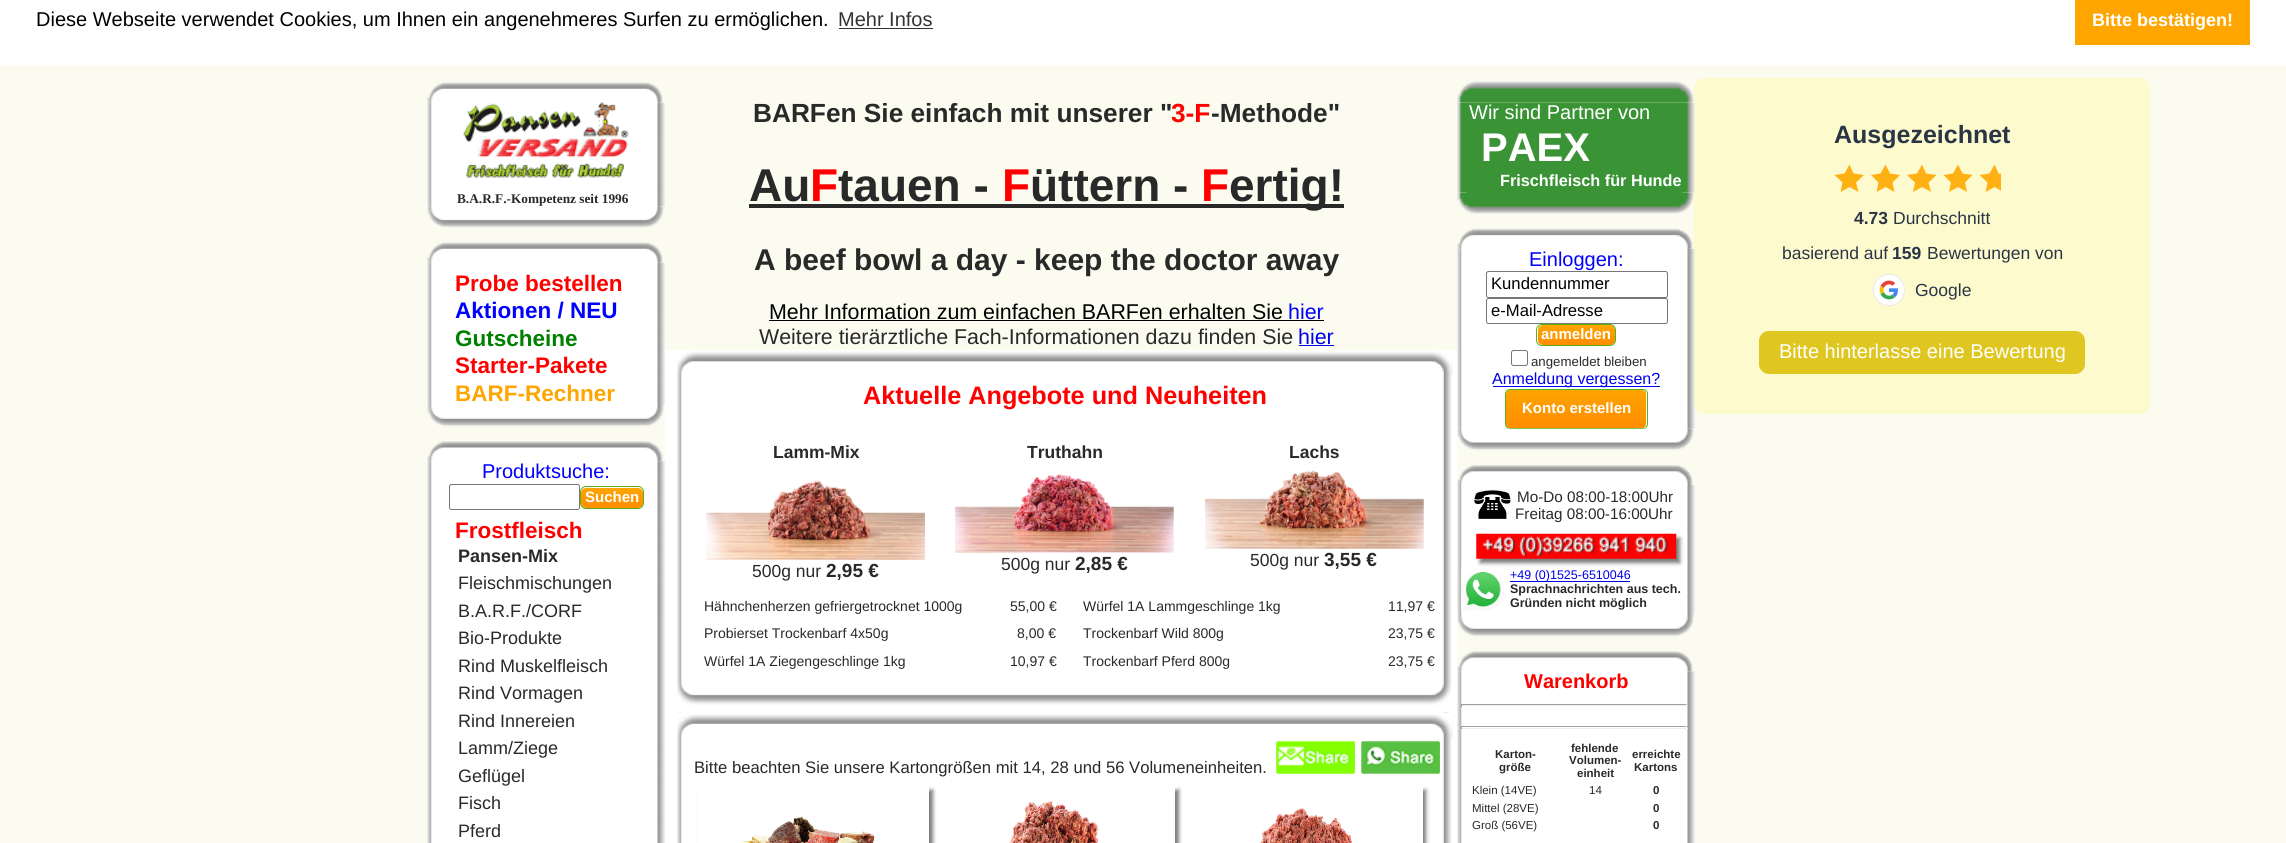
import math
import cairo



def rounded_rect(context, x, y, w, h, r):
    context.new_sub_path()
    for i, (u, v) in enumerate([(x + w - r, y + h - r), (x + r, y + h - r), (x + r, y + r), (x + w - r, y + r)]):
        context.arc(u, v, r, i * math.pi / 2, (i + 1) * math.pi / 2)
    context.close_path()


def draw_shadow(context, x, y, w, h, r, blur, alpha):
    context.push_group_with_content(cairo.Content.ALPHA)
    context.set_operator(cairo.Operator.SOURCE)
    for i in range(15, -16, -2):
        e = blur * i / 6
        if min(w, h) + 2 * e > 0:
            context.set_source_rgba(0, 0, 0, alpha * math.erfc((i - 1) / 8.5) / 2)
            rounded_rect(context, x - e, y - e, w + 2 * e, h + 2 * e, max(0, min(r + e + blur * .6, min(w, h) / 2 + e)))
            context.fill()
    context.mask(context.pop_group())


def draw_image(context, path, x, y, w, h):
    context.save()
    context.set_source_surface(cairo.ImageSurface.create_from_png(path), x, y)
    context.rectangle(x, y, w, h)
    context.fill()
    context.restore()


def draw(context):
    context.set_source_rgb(251 / 255, 251 / 255, 239 / 255)
    context.paint()
    context.set_source_rgb(1, 1, 1)
    context.rectangle(0, 0, 2286, 65)
    context.fill()
    context.set_source_rgb(51 / 255, 51 / 255, 51 / 255)
    context.rectangle(839, 28, 94, 1)
    context.fill()
    context.set_source_rgb(1, 165 / 255, 0)
    context.rectangle(2075, 0, 175, 45)
    context.fill()
    draw_image(context, "images/2.png", 427, 102, 238, 105)
    draw_image(context, "images/1.png", 427, 82, 237, 21)
    draw_image(context, "images/3.png", 463, 102, 166, 76)
    draw_image(context, "images/4.png", 427, 206, 237, 22)
    draw_image(context, "images/5.png", 427, 262, 238, 143)
    draw_image(context, "images/1.png", 427, 242, 237, 21)
    draw_image(context, "images/6.png", 427, 405, 237, 22)
    draw_image(context, "images/8.png", 427, 461, 238, 382)
    draw_image(context, "images/7.png", 427, 441, 237, 21)
    rounded_rect(context, 449.5, 484.5, 130, 25, 2)
    context.set_source_rgb(118 / 255, 118 / 255, 118 / 255)
    context.set_line_width(1)
    context.stroke()
    gradient = cairo.LinearGradient(612, 508, 612, 488)
    gradient.add_color_stop_rgba(0, 1, 140 / 255, 0, 1)
    gradient.add_color_stop_rgba(1, 1, 165 / 255, 0, 1)
    context.set_source(gradient)
    rounded_rect(context, 581, 488, 62, 20, 5)
    context.fill()
    rounded_rect(context, 580.5, 486.5, 63, 22, 5.5)
    context.set_source_rgb(90 / 255, 178 / 255, 18 / 255)
    context.stroke()
    context.set_source_rgb(41 / 255, 41 / 255, 41 / 255)
    context.rectangle(749, 204, 595, 4)
    context.fill()
    context.set_source_rgb(0, 0, 0)
    context.rectangle(769, 320, 555, 1)
    context.fill()
    context.set_source_rgb(0, 0, 238 / 255)
    context.rectangle(1299, 345, 35, 1)
    context.fill()
    draw_image(context, "images/9.png", 665, 350, 793, 25)
    draw_image(context, "images/10.png", 665, 375, 800, 468)
    draw_image(context, "images/11.png", 706, 480, 219, 80)
    draw_image(context, "images/12.png", 955, 474, 219, 79)
    draw_image(context, "images/13.png", 1205, 470, 219, 79)
    draw_image(context, "images/14.png", 677, 683, 775, 30)
    draw_image(context, "images/15.png", 677, 712, 776, 26)
    draw_image(context, "images/16.png", 1276, 741, 79, 33)
    draw_image(context, "images/17.png", 1361, 741, 79, 33)
    context.save()
    context.set_fill_rule(cairo.FillRule.EVEN_ODD)
    context.new_path()
    context.move_to(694, 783)
    context.line_to(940, 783)
    context.line_to(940, 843)
    context.line_to(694, 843)
    context.close_path()
    context.move_to(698, 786)
    context.line_to(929, 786)
    context.line_to(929, 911)
    context.line_to(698, 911)
    context.close_path()
    context.clip()
    context.set_source_rgb(124 / 255, 124 / 255, 124 / 255)
    draw_shadow(context, 701, 790, 232, 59, 0, 2, 1)
    context.restore()
    draw_image(context, "images/18.png", 742, 788, 187, 55)
    context.save()
    context.rectangle(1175, 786, 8, 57)
    context.clip()
    context.set_source_rgb(124 / 255, 124 / 255, 124 / 255)
    draw_shadow(context, 948, 790, 231, 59, 0, 2, 1)
    context.restore()
    draw_image(context, "images/19.png", 1008, 801, 91, 42)
    context.save()
    context.set_fill_rule(cairo.FillRule.EVEN_ODD)
    context.new_path()
    context.move_to(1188, 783)
    context.line_to(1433, 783)
    context.line_to(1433, 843)
    context.line_to(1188, 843)
    context.close_path()
    context.move_to(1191, 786)
    context.line_to(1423, 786)
    context.line_to(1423, 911)
    context.line_to(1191, 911)
    context.close_path()
    context.clip()
    context.set_source_rgb(124 / 255, 124 / 255, 124 / 255)
    draw_shadow(context, 1195, 790, 231, 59, 0, 2, 1)
    context.restore()
    draw_image(context, "images/20.png", 1259, 788, 164, 55)
    draw_image(context, "images/22.png", 1457, 102, 238, 91)
    draw_image(context, "images/21.png", 1457, 81, 237, 22)
    context.set_source_rgb(58 / 255, 148 / 255, 53 / 255)
    rounded_rect(context, 1463, 103, 223, 90, 6)
    context.fill()
    draw_image(context, "images/23.png", 1457, 192, 237, 22)
    draw_image(context, "images/25.png", 1457, 248, 238, 181)
    draw_image(context, "images/24.png", 1457, 228, 237, 21)
    rounded_rect(context, 1486.5, 271.5, 181, 26, 2)
    context.set_source_rgb(118 / 255, 118 / 255, 118 / 255)
    context.stroke()
    rounded_rect(context, 1486.5, 298.5, 181, 25, 2)
    context.stroke()
    gradient = cairo.LinearGradient(1576, 345, 1576, 325)
    gradient.add_color_stop_rgba(0, 1, 140 / 255, 0, 1)
    gradient.add_color_stop_rgba(1, 1, 165 / 255, 0, 1)
    context.set_source(gradient)
    rounded_rect(context, 1538, 325, 77, 20, 5)
    context.fill()
    rounded_rect(context, 1536.5, 324.5, 79, 21, 5.5)
    context.set_source_rgb(90 / 255, 178 / 255, 18 / 255)
    context.stroke()
    rounded_rect(context, 1511.5, 350.5, 16, 15, 2)
    context.set_source_rgb(118 / 255, 118 / 255, 118 / 255)
    context.stroke()
    context.set_source_rgb(0, 0, 238 / 255)
    context.rectangle(1493, 386, 167, 1)
    context.fill()
    gradient = cairo.LinearGradient(1576, 428, 1576, 390)
    gradient.add_color_stop_rgba(0, 1, 140 / 255, 0, 1)
    gradient.add_color_stop_rgba(1, 1, 165 / 255, 0, 1)
    context.set_source(gradient)
    rounded_rect(context, 1506, 390, 140, 38, 4)
    context.fill()
    rounded_rect(context, 1505.5, 389.5, 142, 39, 4.5)
    context.set_source_rgb(90 / 255, 178 / 255, 18 / 255)
    context.stroke()
    draw_image(context, "images/26.png", 1457, 428, 237, 32)
    draw_image(context, "images/27.png", 1457, 460, 236, 25)
    draw_image(context, "images/28.png", 1457, 485, 238, 130)
    draw_image(context, "images/29.png", 1474, 489, 37, 31)
    context.set_source_rgb(124 / 255, 124 / 255, 124 / 255)
    draw_shadow(context, 1480, 538, 200, 25, 0, 2, 1)
    draw_image(context, "images/30.png", 1476, 533, 201, 26)
    draw_image(context, "images/31.png", 1461, 567, 43, 45)
    context.set_source_rgb(0, 0, 238 / 255)
    context.rectangle(1510, 581, 120, 1)
    context.fill()
    draw_image(context, "images/32.png", 1457, 615, 237, 32)
    draw_image(context, "images/34.png", 1457, 671, 238, 172)
    draw_image(context, "images/33.png", 1457, 646, 237, 26)
    context.set_source_rgb(159 / 255, 159 / 255, 159 / 255)
    context.rectangle(1461, 704, 227, 1)
    context.fill()
    context.set_source_rgb(238 / 255, 238 / 255, 238 / 255)
    context.rectangle(1686, 704, 1, 3)
    context.fill()
    context.rectangle(1461, 705, 227, 1)
    context.fill()
    context.set_source_rgb(159 / 255, 159 / 255, 159 / 255)
    context.rectangle(1461, 704, 1, 3)
    context.fill()
    context.rectangle(1461, 726, 227, 1)
    context.fill()
    context.set_source_rgb(238 / 255, 238 / 255, 238 / 255)
    context.rectangle(1686, 726, 1, 3)
    context.fill()
    context.rectangle(1461, 728, 227, 1)
    context.fill()
    context.set_source_rgb(159 / 255, 159 / 255, 159 / 255)
    context.rectangle(1461, 726, 1, 3)
    context.fill()
    context.set_source_rgba(1, 247 / 255, 158 / 255, 0.4)
    rounded_rect(context, 1694, 78, 456, 336, 10)
    context.fill()
    context.set_source_rgb(1, 177 / 255, 20 / 255)
    context.new_path()
    context.move_to(1849.5, 164.5)
    context.line_to(1853.5, 173.5)
    context.line_to(1864, 175)
    context.line_to(1856, 182.5)
    context.line_to(1858.5, 192)
    context.line_to(1849.5, 187)
    context.line_to(1840.5, 192)
    context.line_to(1842.5, 182.5)
    context.line_to(1834.5, 175)
    context.line_to(1844.5, 173.5)
    context.close_path()
    context.fill()
    context.new_path()
    context.move_to(1885.5, 164.5)
    context.line_to(1890, 173.5)
    context.line_to(1900, 175)
    context.line_to(1892.5, 182.5)
    context.line_to(1894.5, 192)
    context.line_to(1885.5, 187)
    context.line_to(1876.5, 192)
    context.line_to(1878.5, 182.5)
    context.line_to(1871, 175)
    context.line_to(1880.5, 173.5)
    context.close_path()
    context.fill()
    context.new_path()
    context.move_to(1922, 164.5)
    context.line_to(1926, 173.5)
    context.line_to(1936.5, 175)
    context.line_to(1928.5, 182.5)
    context.line_to(1931, 192)
    context.line_to(1922, 187)
    context.line_to(1913, 192)
    context.line_to(1915, 182.5)
    context.line_to(1907, 175)
    context.line_to(1917, 173.5)
    context.close_path()
    context.fill()
    context.new_path()
    context.move_to(1958, 164.5)
    context.line_to(1962.5, 173.5)
    context.line_to(1972.5, 175)
    context.line_to(1965, 182.5)
    context.line_to(1967, 192)
    context.line_to(1958, 187)
    context.line_to(1949, 192)
    context.line_to(1951, 182.5)
    context.line_to(1943.5, 175)
    context.line_to(1953, 173.5)
    context.close_path()
    context.fill()
    context.save()
    context.rectangle(1979, 163, 22, 31)
    context.clip()
    context.new_path()
    context.move_to(1994.5, 164.5)
    context.line_to(1998.5, 173.5)
    context.line_to(2009, 175)
    context.line_to(2001, 182.5)
    context.line_to(2003.5, 192)
    context.line_to(1994.5, 187)
    context.line_to(1985.5, 192)
    context.line_to(1987.5, 182.5)
    context.line_to(1979.5, 175)
    context.line_to(1989.5, 173.5)
    context.close_path()
    context.fill()
    context.restore()
    context.arc(1889, 290, 15.5, 0, 2 * math.pi)
    context.set_source_rgb(229 / 255, 233 / 255, 240 / 255)
    context.stroke()
    draw_image(context, "images/35.png", 1874, 275, 30, 30)
    context.set_source_rgb(223 / 255, 198 / 255, 32 / 255)
    rounded_rect(context, 1759, 331, 326, 43, 10)
    context.fill()
    context.select_font_face("Liberation Sans")
    context.set_font_size(20)
    context.set_source_rgb(0, 0, 0)
    context.move_to(36, 26)
    context.show_text("Diese Webseite verwendet Cookies, um Ihnen ein angenehmeres Surfen zu ermöglichen.")
    context.set_source_rgb(51 / 255, 51 / 255, 51 / 255)
    context.move_to(838, 26)
    context.show_text("Mehr Infos")
    context.select_font_face("Liberation Sans", cairo.FontSlant.NORMAL, cairo.FontWeight.BOLD)
    context.set_font_size(18)
    context.set_source_rgb(1, 1, 1)
    context.move_to(2092, 26)
    context.show_text("Bitte bestätigen!")
    context.select_font_face("Liberation Serif", cairo.FontSlant.NORMAL, cairo.FontWeight.BOLD)
    context.set_font_size(13.3)
    context.set_source_rgb(41 / 255, 41 / 255, 41 / 255)
    context.move_to(457, 203)
    context.show_text("B.A.R.F.-Kompetenz seit 1996")
    context.select_font_face("Liberation Sans", cairo.FontSlant.NORMAL, cairo.FontWeight.BOLD)
    context.set_font_size(22.5)
    context.set_source_rgb(1, 0, 0)
    context.move_to(455, 291)
    context.show_text("Probe bestellen")
    context.set_source_rgb(0, 0, 1)
    context.move_to(455, 318)
    context.show_text("Aktionen / NEU")
    context.set_source_rgb(0, 128 / 255, 0)
    context.move_to(455, 346)
    context.show_text("Gutscheine")
    context.set_source_rgb(1, 0, 0)
    context.move_to(455, 373)
    context.show_text("Starter-Pakete")
    context.set_source_rgb(1, 165 / 255, 0)
    context.move_to(455, 401)
    context.show_text("BARF-Rechner")
    context.select_font_face("Liberation Sans")
    context.set_font_size(20)
    context.set_source_rgb(0, 0, 1)
    context.move_to(482, 478)
    context.show_text("Produktsuche:")
    context.select_font_face("Liberation Sans", cairo.FontSlant.NORMAL, cairo.FontWeight.BOLD)
    context.set_font_size(15)
    context.set_source_rgb(1, 1, 1)
    context.move_to(585, 502)
    context.show_text("Suchen")
    context.set_font_size(22.5)
    context.set_source_rgb(1, 0, 0)
    context.move_to(455, 538)
    context.show_text("Frostfleisch")
    context.set_font_size(18)
    context.set_source_rgb(41 / 255, 41 / 255, 41 / 255)
    context.move_to(458, 562)
    context.show_text("Pansen-Mix")
    context.select_font_face("Liberation Sans")
    context.move_to(458, 589)
    context.show_text("Fleischmischungen")
    context.move_to(458, 617)
    context.show_text("B.A.R.F./CORF")
    context.move_to(458, 644)
    context.show_text("Bio-Produkte")
    context.move_to(458, 672)
    context.show_text("Rind Muskelfleisch")
    context.move_to(458, 699)
    context.show_text("Rind Vormagen")
    context.move_to(458, 727)
    context.show_text("Rind Innereien")
    context.move_to(458, 754)
    context.show_text("Lamm/Ziege")
    context.move_to(458, 782)
    context.show_text("Geflügel")
    context.move_to(458, 809)
    context.show_text("Fisch")
    context.move_to(458, 837)
    context.show_text("Pferd")
    context.select_font_face("Liberation Sans", cairo.FontSlant.NORMAL, cairo.FontWeight.BOLD)
    context.set_font_size(26.25)
    context.move_to(753, 122)
    context.show_text("BARFen Sie einfach mit unserer \"")
    context.set_source_rgb(1, 0, 0)
    context.move_to(1171, 122)
    context.show_text("3-F")
    context.set_source_rgb(41 / 255, 41 / 255, 41 / 255)
    context.move_to(1211, 122)
    context.show_text("-Methode\"")
    context.set_font_size(46)
    context.move_to(749, 201)
    context.show_text("Au")
    context.set_source_rgb(1, 0, 0)
    context.move_to(810, 201)
    context.show_text("F")
    context.set_source_rgb(41 / 255, 41 / 255, 41 / 255)
    context.move_to(838, 201)
    context.show_text("tauen -")
    context.set_source_rgb(1, 0, 0)
    context.move_to(1002, 201)
    context.show_text("F")
    context.set_source_rgb(41 / 255, 41 / 255, 41 / 255)
    context.move_to(1030, 201)
    context.show_text("üttern -")
    context.set_source_rgb(1, 0, 0)
    context.move_to(1201, 201)
    context.show_text("F")
    context.set_source_rgb(41 / 255, 41 / 255, 41 / 255)
    context.move_to(1229, 201)
    context.show_text("ertig!")
    context.set_font_size(30)
    context.move_to(754, 270)
    context.show_text("A beef bowl a day - keep the doctor away")
    context.select_font_face("Liberation Sans")
    context.set_font_size(21.4)
    context.set_source_rgb(0, 0, 0)
    context.move_to(769, 319)
    context.show_text("Mehr Information zum einfachen BARFen erhalten Sie")
    context.set_source_rgb(0, 0, 1)
    context.move_to(1288, 319)
    context.show_text("hier")
    context.set_source_rgb(41 / 255, 41 / 255, 41 / 255)
    context.move_to(759, 344)
    context.show_text("Weitere tierärztliche Fach-Informationen dazu finden Sie")
    context.set_source_rgb(0, 0, 238 / 255)
    context.move_to(1298, 344)
    context.show_text("hier")
    context.select_font_face("Liberation Sans", cairo.FontSlant.NORMAL, cairo.FontWeight.BOLD)
    context.set_font_size(25.25)
    context.set_source_rgb(1, 0, 0)
    context.move_to(863, 404)
    context.show_text("Aktuelle Angebote und Neuheiten")
    context.set_font_size(17.5)
    context.set_source_rgb(41 / 255, 41 / 255, 41 / 255)
    context.move_to(773, 458)
    context.show_text("Lamm-Mix")
    context.select_font_face("Liberation Sans")
    context.move_to(752, 577)
    context.show_text("500g nur")
    context.select_font_face("Liberation Sans", cairo.FontSlant.NORMAL, cairo.FontWeight.BOLD)
    context.set_font_size(19)
    context.move_to(826, 577)
    context.show_text("2,95 €")
    context.set_font_size(17.5)
    context.move_to(1027, 458)
    context.show_text("Truthahn")
    context.select_font_face("Liberation Sans")
    context.move_to(1001, 570)
    context.show_text("500g nur")
    context.select_font_face("Liberation Sans", cairo.FontSlant.NORMAL, cairo.FontWeight.BOLD)
    context.set_font_size(19)
    context.move_to(1075, 570)
    context.show_text("2,85 €")
    context.set_font_size(17.5)
    context.move_to(1289, 458)
    context.show_text("Lachs")
    context.select_font_face("Liberation Sans")
    context.move_to(1250, 566)
    context.show_text("500g nur")
    context.select_font_face("Liberation Sans", cairo.FontSlant.NORMAL, cairo.FontWeight.BOLD)
    context.set_font_size(19)
    context.move_to(1324, 566)
    context.show_text("3,55 €")
    context.select_font_face("Liberation Sans")
    context.set_font_size(14)
    context.move_to(704, 611)
    context.show_text("Hähnchenherzen gefriergetrocknet 1000g")
    context.move_to(1010, 611)
    context.show_text("55,00 €")
    context.move_to(704, 638)
    context.show_text("Probierset Trockenbarf 4x50g")
    context.move_to(1017, 638)
    context.show_text("8,00 €")
    context.move_to(704, 666)
    context.show_text("Würfel 1A Ziegengeschlinge 1kg")
    context.move_to(1010, 666)
    context.show_text("10,97 €")
    context.move_to(1083, 611)
    context.show_text("Würfel 1A Lammgeschlinge 1kg")
    context.move_to(1388, 611)
    context.show_text("11,97 €")
    context.move_to(1083, 638)
    context.show_text("Trockenbarf Wild 800g")
    context.move_to(1388, 638)
    context.show_text("23,75 €")
    context.move_to(1083, 666)
    context.show_text("Trockenbarf Pferd 800g")
    context.move_to(1388, 666)
    context.show_text("23,75 €")
    context.set_font_size(16.65)
    context.move_to(694, 773)
    context.show_text("Bitte beachten Sie unsere Kartongrößen mit 14, 28 und 56 Volumeneinheiten.")
    context.set_font_size(20)
    context.set_source_rgb(1, 1, 1)
    context.move_to(1469, 119)
    context.show_text("Wir sind Partner von")
    context.select_font_face("Liberation Sans", cairo.FontSlant.NORMAL, cairo.FontWeight.BOLD)
    context.set_font_size(40)
    context.move_to(1481, 161)
    context.show_text("PAEX")
    context.set_font_size(16.25)
    context.move_to(1500, 186)
    context.show_text("Frischfleisch für Hunde")
    context.select_font_face("Liberation Sans")
    context.set_font_size(20)
    context.set_source_rgb(0, 0, 1)
    context.move_to(1529, 266)
    context.show_text("Einloggen:")
    context.set_font_size(16.65)
    context.set_source_rgb(0, 0, 0)
    context.move_to(1491, 289)
    context.show_text("Kundennummer")
    context.move_to(1491, 316)
    context.show_text("e-Mail-Adresse")
    context.select_font_face("Liberation Sans", cairo.FontSlant.NORMAL, cairo.FontWeight.BOLD)
    context.set_font_size(15)
    context.set_source_rgb(1, 1, 1)
    context.move_to(1541, 339)
    context.show_text("anmelden")
    context.select_font_face("Liberation Sans")
    context.set_font_size(13.25)
    context.set_source_rgb(41 / 255, 41 / 255, 41 / 255)
    context.move_to(1531, 366)
    context.show_text("angemeldet bleiben")
    context.set_font_size(16)
    context.set_source_rgb(0, 0, 238 / 255)
    context.move_to(1492, 384)
    context.show_text("Anmeldung vergessen?")
    context.select_font_face("Liberation Sans", cairo.FontSlant.NORMAL, cairo.FontWeight.BOLD)
    context.set_font_size(15)
    context.set_source_rgb(1, 1, 1)
    context.move_to(1522, 413)
    context.show_text("Konto erstellen")
    context.select_font_face("Liberation Sans")
    context.set_font_size(15.25)
    context.set_source_rgb(41 / 255, 41 / 255, 41 / 255)
    context.move_to(1517, 502)
    context.show_text("Mo-Do 08:00-18:00Uhr")
    context.move_to(1515, 519)
    context.show_text("Freitag 08:00-16:00Uhr")
    context.set_font_size(12.5)
    context.set_source_rgb(0, 0, 238 / 255)
    context.move_to(1510, 579)
    context.show_text("+49 (0)1525-6510046")
    context.select_font_face("Liberation Sans", cairo.FontSlant.NORMAL, cairo.FontWeight.BOLD)
    context.set_source_rgb(41 / 255, 41 / 255, 41 / 255)
    context.move_to(1510, 593)
    context.show_text("Sprachnachrichten aus tech.")
    context.move_to(1510, 607)
    context.show_text("Gründen nicht möglich")
    context.set_font_size(20)
    context.set_source_rgb(1, 0, 0)
    context.move_to(1524, 688)
    context.show_text("Warenkorb")
    context.set_font_size(11.5)
    context.set_source_rgb(41 / 255, 41 / 255, 41 / 255)
    context.move_to(1495, 758)
    context.show_text("Karton-")
    context.move_to(1499, 771)
    context.show_text("größe")
    context.move_to(1571, 752)
    context.show_text("fehlende")
    context.move_to(1569, 764)
    context.show_text("Volumen-")
    context.move_to(1577, 777)
    context.show_text("einheit")
    context.move_to(1632, 758)
    context.show_text("erreichte")
    context.move_to(1634, 771)
    context.show_text("Kartons")
    context.select_font_face("Liberation Sans")
    context.move_to(1472, 794)
    context.show_text("Klein (14VE)")
    context.move_to(1589, 794)
    context.show_text("14")
    context.select_font_face("Liberation Sans", cairo.FontSlant.NORMAL, cairo.FontWeight.BOLD)
    context.move_to(1653, 794)
    context.show_text("0")
    context.select_font_face("Liberation Sans")
    context.move_to(1472, 812)
    context.show_text("Mittel (28VE)")
    context.select_font_face("Liberation Sans", cairo.FontSlant.NORMAL, cairo.FontWeight.BOLD)
    context.move_to(1653, 812)
    context.show_text("0")
    context.select_font_face("Liberation Sans")
    context.move_to(1472, 829)
    context.show_text("Groß (56VE)")
    context.select_font_face("Liberation Sans", cairo.FontSlant.NORMAL, cairo.FontWeight.BOLD)
    context.move_to(1653, 829)
    context.show_text("0")
    context.set_font_size(25)
    context.set_source_rgb(42 / 255, 53 / 255, 70 / 255)
    context.move_to(1834, 143)
    context.show_text("Ausgezeichnet")
    context.set_font_size(17.5)
    context.move_to(1854, 224)
    context.show_text("4.73")
    context.select_font_face("Liberation Sans")
    context.move_to(1893, 224)
    context.show_text("Durchschnitt")
    context.move_to(1782, 259)
    context.show_text("basierend auf")
    context.select_font_face("Liberation Sans", cairo.FontSlant.NORMAL, cairo.FontWeight.BOLD)
    context.move_to(1892, 259)
    context.show_text("159")
    context.select_font_face("Liberation Sans")
    context.move_to(1927, 259)
    context.show_text("Bewertungen von")
    context.move_to(1915, 296)
    context.show_text("Google")
    context.set_font_size(20)
    context.set_source_rgb(1, 1, 1)
    context.move_to(1779, 358)
    context.show_text("Bitte hinterlasse eine Bewertung")


surface = cairo.ImageSurface(cairo.Format.RGB24, 2286, 843)
context = cairo.Context(surface)
options = cairo.FontOptions()
options.set_hint_metrics(cairo.HintMetrics.OFF)
options.set_hint_style(cairo.HintStyle.NONE)
context.set_font_options(options)
context.set_miter_limit(4)
draw(context)
surface.write_to_png("out.png")
